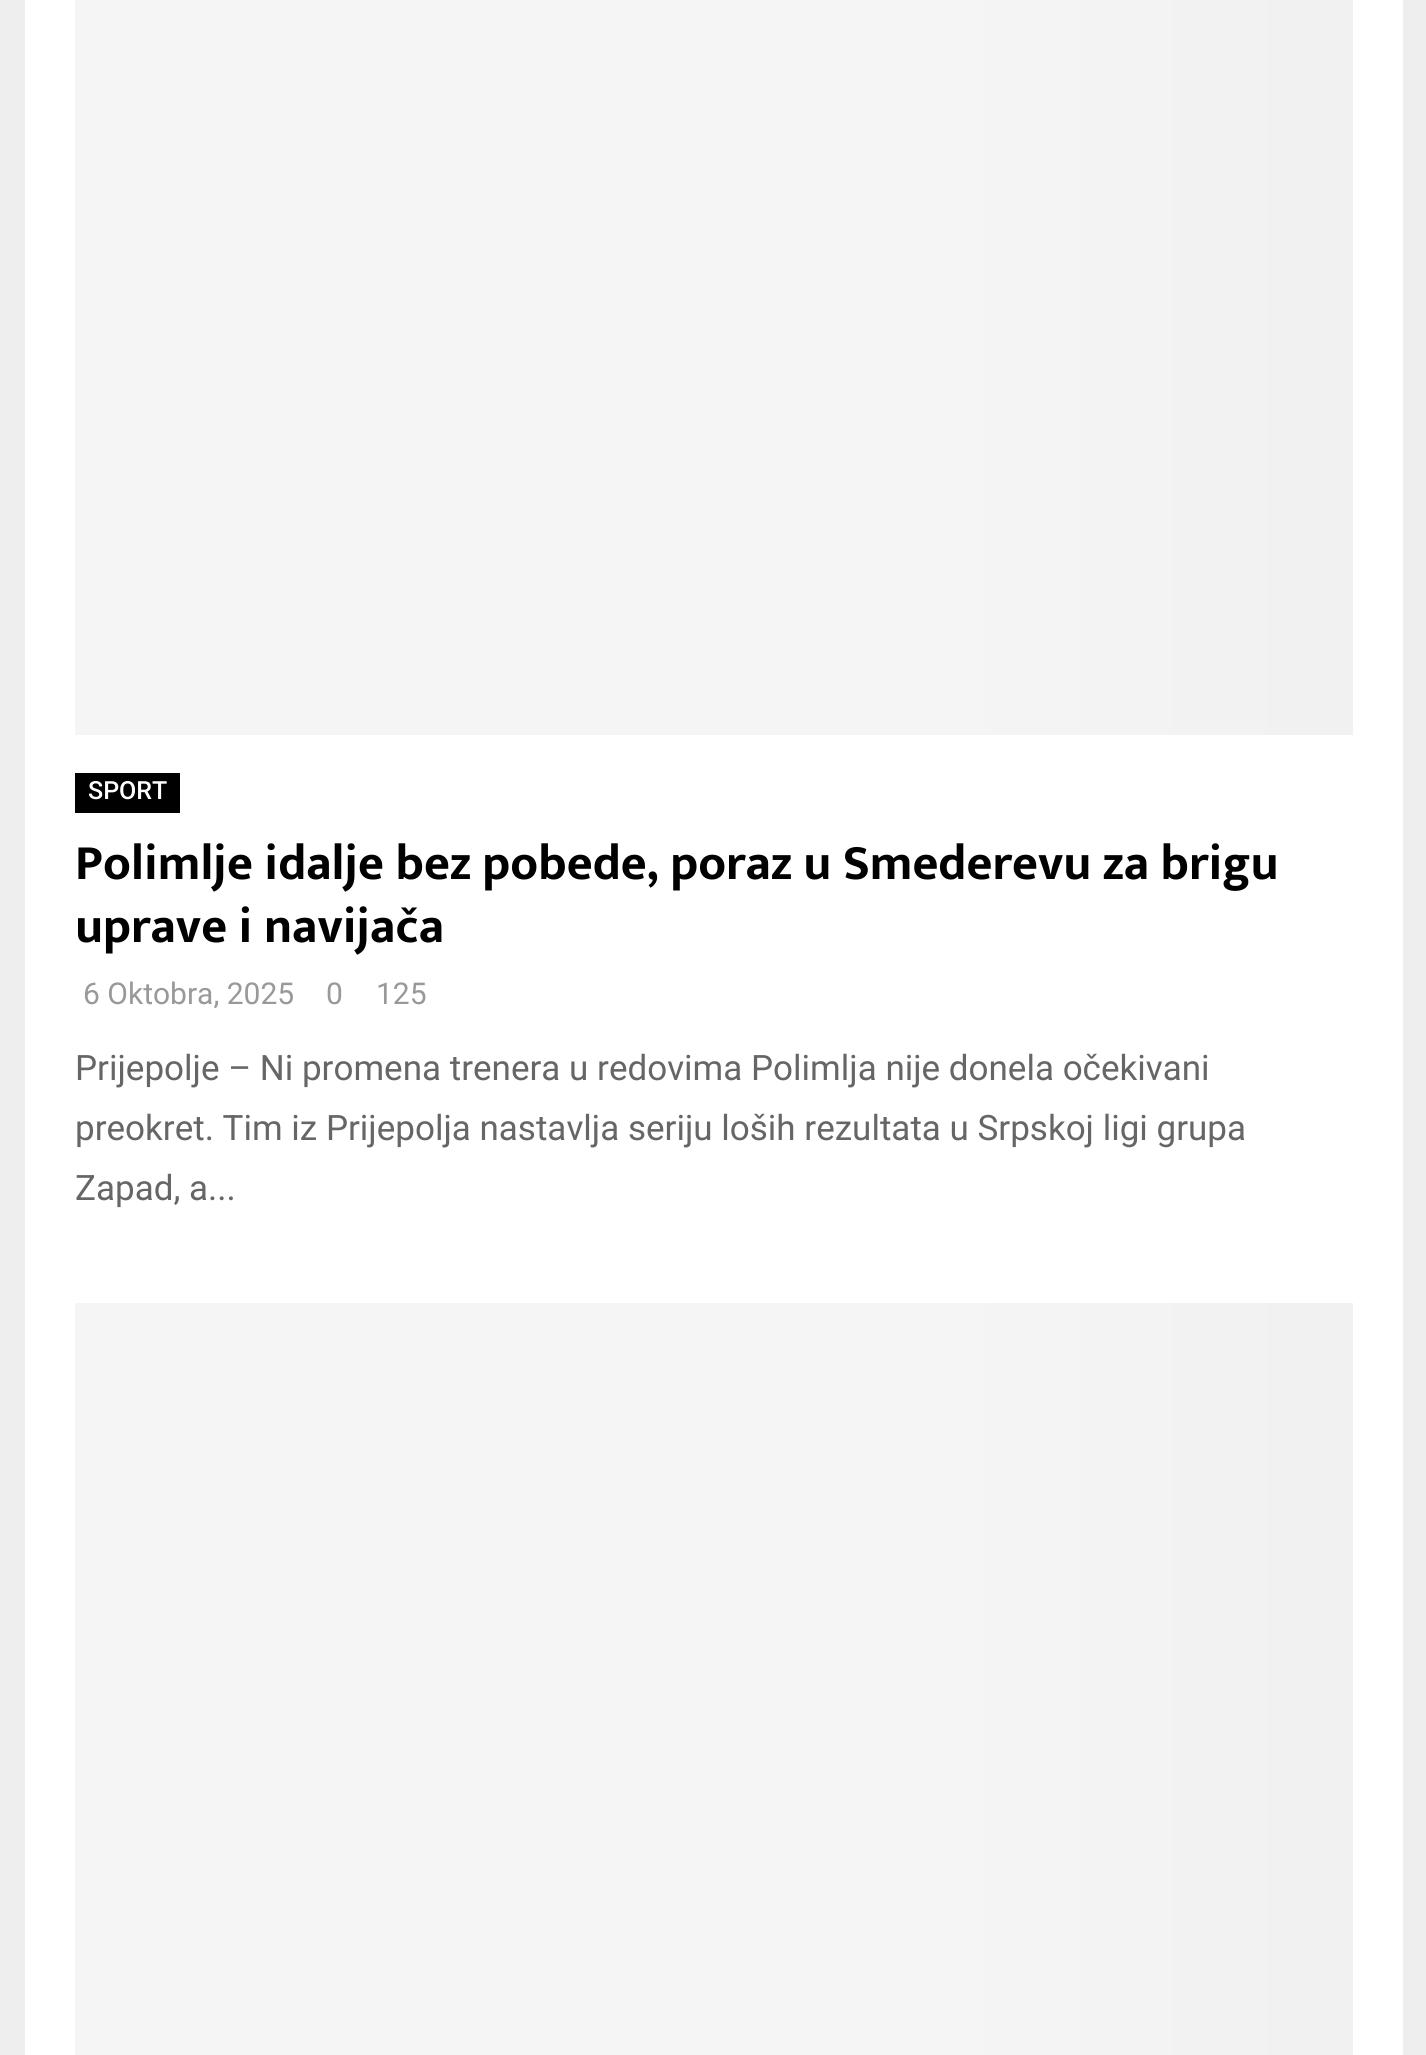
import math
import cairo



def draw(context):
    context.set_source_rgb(238 / 255, 238 / 255, 238 / 255)
    context.paint()
    context.set_source_rgb(1, 1, 1)
    context.rectangle(25, 0, 1378, 2055)
    context.fill()
    gradient = cairo.LinearGradient(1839, 309, -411, 309)
    gradient.add_color_stop_rgba(0, 245 / 255, 245 / 255, 245 / 255, 1)
    gradient.add_color_stop_rgba(0.15, 239 / 255, 239 / 255, 239 / 255, 1)
    gradient.add_color_stop_rgba(0.4, 245 / 255, 245 / 255, 245 / 255, 1)
    gradient.add_color_stop_rgba(1, 245 / 255, 245 / 255, 245 / 255, 1)
    context.set_source(gradient)
    context.rectangle(75, 0, 1278, 735)
    context.fill()
    context.set_source_rgb(0, 0, 0)
    context.rectangle(75, 773, 105, 40)
    context.fill()
    gradient = cairo.LinearGradient(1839, 1729, -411, 1729)
    gradient.add_color_stop_rgba(0, 245 / 255, 245 / 255, 245 / 255, 1)
    gradient.add_color_stop_rgba(0.15, 239 / 255, 239 / 255, 239 / 255, 1)
    gradient.add_color_stop_rgba(0.4, 245 / 255, 245 / 255, 245 / 255, 1)
    gradient.add_color_stop_rgba(1, 245 / 255, 245 / 255, 245 / 255, 1)
    context.set_source(gradient)
    context.rectangle(75, 1303, 1278, 752)
    context.fill()
    context.select_font_face("Roboto Medium")
    context.set_font_size(25)
    context.set_source_rgb(1, 1, 1)
    context.move_to(88, 799)
    context.show_text("SPORT")
    context.select_font_face("Mukta Vaani", cairo.FontSlant.NORMAL, cairo.FontWeight.BOLD)
    context.set_font_size(50)
    context.set_source_rgb(0, 0, 0)
    context.move_to(75, 879)
    context.show_text("Polimlje idalje bez pobede, poraz u Smederevu za brigu")
    context.move_to(75, 942)
    context.show_text("uprave i navijača")
    context.select_font_face("Roboto")
    context.set_font_size(30)
    context.set_source_rgb(153 / 255, 153 / 255, 153 / 255)
    context.move_to(83, 1004)
    context.show_text("6 Oktobra, 2025")
    context.move_to(326, 1004)
    context.show_text("0")
    context.move_to(376, 1004)
    context.show_text("125")
    context.set_font_size(35)
    context.set_source_rgb(102 / 255, 102 / 255, 102 / 255)
    context.move_to(75, 1080)
    context.show_text("Prijepolje – Ni promena trenera u redovima Polimlja nije donela očekivani")
    context.move_to(75, 1140)
    context.show_text("preokret. Tim iz Prijepolja nastavlja seriju loših rezultata u Srpskoj ligi grupa")
    context.move_to(75, 1200)
    context.show_text("Zapad, a...")


surface = cairo.ImageSurface(cairo.Format.RGB24, 1426, 2055)
context = cairo.Context(surface)
options = cairo.FontOptions()
options.set_hint_metrics(cairo.HintMetrics.OFF)
options.set_hint_style(cairo.HintStyle.NONE)
context.set_font_options(options)
context.set_miter_limit(4)
draw(context)
surface.write_to_png("out.png")
